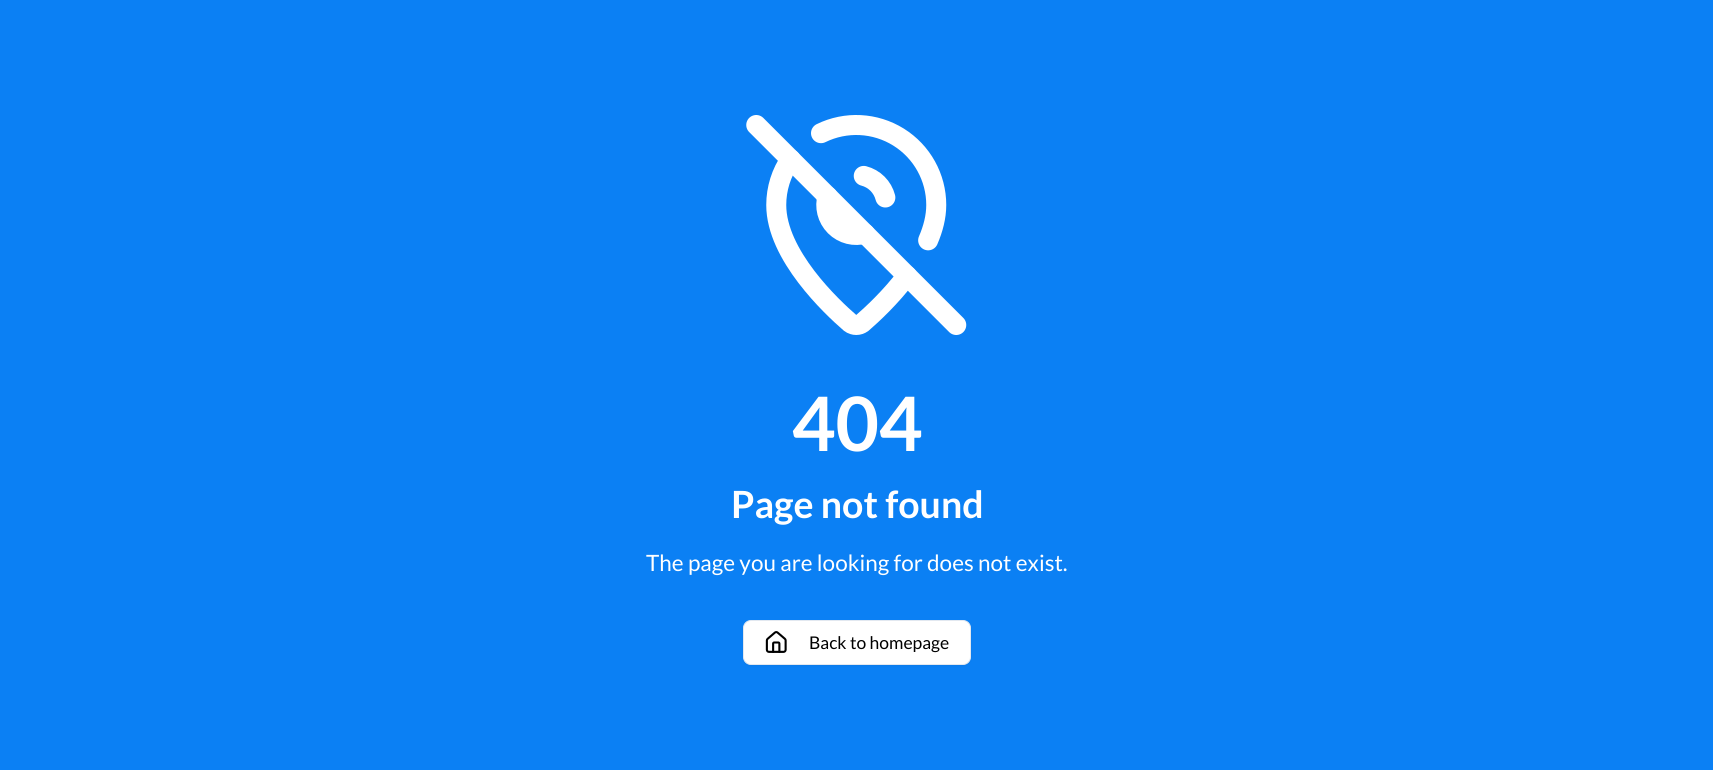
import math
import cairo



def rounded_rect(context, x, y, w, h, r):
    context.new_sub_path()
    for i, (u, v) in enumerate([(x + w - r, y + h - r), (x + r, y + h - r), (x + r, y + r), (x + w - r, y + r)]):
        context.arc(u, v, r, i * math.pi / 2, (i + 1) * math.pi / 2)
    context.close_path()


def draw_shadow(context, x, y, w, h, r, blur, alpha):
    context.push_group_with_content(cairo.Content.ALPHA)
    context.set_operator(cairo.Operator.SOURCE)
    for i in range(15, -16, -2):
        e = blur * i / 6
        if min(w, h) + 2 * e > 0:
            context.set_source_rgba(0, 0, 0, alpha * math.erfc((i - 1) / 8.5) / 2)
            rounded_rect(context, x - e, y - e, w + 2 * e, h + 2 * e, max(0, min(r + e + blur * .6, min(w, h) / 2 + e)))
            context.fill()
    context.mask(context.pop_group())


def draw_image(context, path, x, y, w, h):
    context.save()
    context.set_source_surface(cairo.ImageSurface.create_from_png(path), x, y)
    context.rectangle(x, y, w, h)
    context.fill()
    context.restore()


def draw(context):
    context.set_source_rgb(11 / 255, 128 / 255, 244 / 255)
    context.paint()
    draw_image(context, "images/1.png", 746, 115, 221, 220)
    context.set_source_rgb(0, 0, 0)
    draw_shadow(context, 743, 621, 228, 45, 8, 1, 0.05)
    context.set_source_rgb(1, 1, 1)
    rounded_rect(context, 743.5, 620.5, 227, 44, 7.5)
    context.fill_preserve()
    context.set_source_rgb(226 / 255, 232 / 255, 240 / 255)
    context.set_line_width(1)
    context.stroke()
    draw_image(context, "images/2.png", 765, 631, 22, 22)
    context.select_font_face("Lato", cairo.FontSlant.NORMAL, cairo.FontWeight.BOLD)
    context.set_font_size(75)
    context.set_source_rgb(1, 1, 1)
    context.move_to(792, 451)
    context.show_text("404")
    context.set_font_size(37.5)
    context.move_to(731, 518)
    context.show_text("Page not found")
    context.select_font_face("Lato")
    context.set_font_size(22.5)
    context.move_to(646, 571)
    context.show_text("The page you are looking for does not exist.")
    context.set_font_size(17.5)
    context.set_source_rgb(0, 0, 0)
    context.move_to(809, 649)
    context.show_text("Back to homepage")


surface = cairo.ImageSurface(cairo.Format.RGB24, 1713, 770)
context = cairo.Context(surface)
options = cairo.FontOptions()
options.set_hint_metrics(cairo.HintMetrics.OFF)
options.set_hint_style(cairo.HintStyle.NONE)
context.set_font_options(options)
context.set_miter_limit(4)
draw(context)
surface.write_to_png("out.png")
